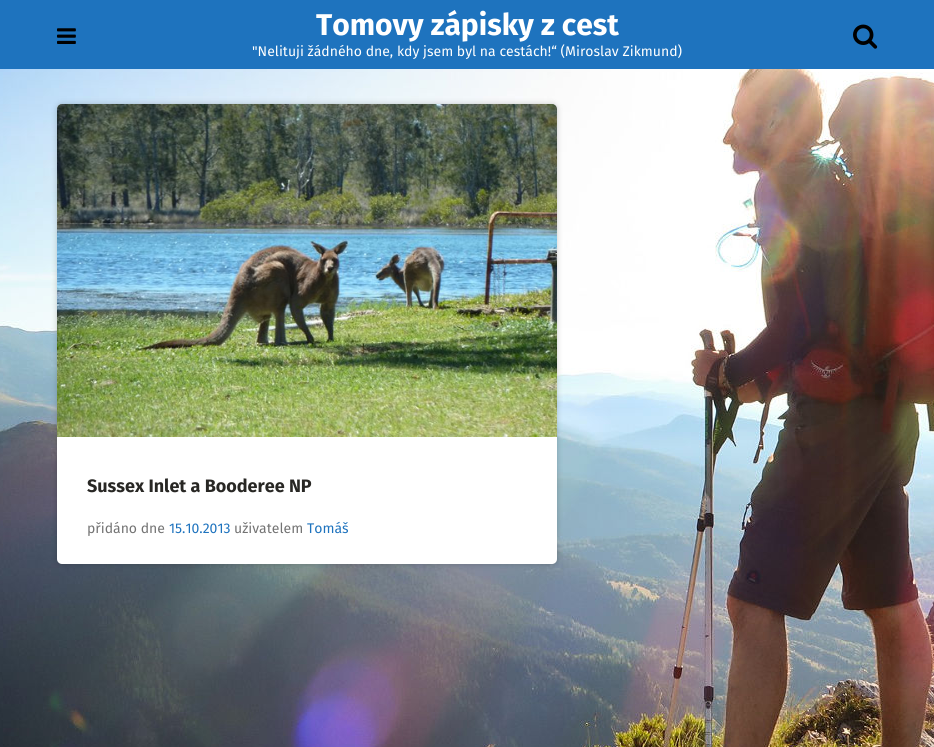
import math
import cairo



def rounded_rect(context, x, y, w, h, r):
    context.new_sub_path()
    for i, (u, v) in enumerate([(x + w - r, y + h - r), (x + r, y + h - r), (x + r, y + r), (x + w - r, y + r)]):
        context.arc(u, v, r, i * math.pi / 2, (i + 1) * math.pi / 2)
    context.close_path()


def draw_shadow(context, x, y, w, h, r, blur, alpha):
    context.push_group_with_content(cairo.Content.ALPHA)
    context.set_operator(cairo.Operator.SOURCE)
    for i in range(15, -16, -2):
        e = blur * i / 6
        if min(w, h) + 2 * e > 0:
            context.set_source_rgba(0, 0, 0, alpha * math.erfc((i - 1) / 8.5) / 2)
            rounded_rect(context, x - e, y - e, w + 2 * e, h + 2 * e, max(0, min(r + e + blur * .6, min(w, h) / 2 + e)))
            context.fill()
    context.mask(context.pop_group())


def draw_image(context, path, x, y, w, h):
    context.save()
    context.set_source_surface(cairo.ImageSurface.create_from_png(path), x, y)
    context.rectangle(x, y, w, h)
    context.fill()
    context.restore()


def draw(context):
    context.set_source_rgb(1, 1, 1)
    context.paint()
    draw_image(context, "images/1.png", 0, 69, 934, 678)
    context.set_source_rgb(30 / 255, 115 / 255, 190 / 255)
    context.rectangle(0, 0, 934, 69)
    context.fill()
    draw_image(context, "images/2.png", 57, 28, 19, 16)
    draw_image(context, "images/3.png", 853, 24, 25, 25)
    context.set_source_rgb(0, 0, 0)
    draw_shadow(context, 57, 104, 500, 460, 5, 3, 0.2)
    context.set_source_rgb(1, 1, 1)
    rounded_rect(context, 57, 104, 500, 460, 5)
    context.fill()
    draw_image(context, "images/4.png", 57, 104, 500, 333)
    context.select_font_face("Fira Sans", cairo.FontSlant.NORMAL, cairo.FontWeight.BOLD)
    context.set_font_size(30)
    context.move_to(316, 35)
    context.show_text("Tomovy zápisky z cest")
    context.select_font_face("Fira Sans")
    context.set_font_size(14)
    context.move_to(252, 56)
    context.show_text("\"Nelituji žádného dne, kdy jsem byl na cestách!“ (Miroslav Zikmund)")
    context.select_font_face("Fira Sans", cairo.FontSlant.NORMAL, cairo.FontWeight.BOLD)
    context.set_font_size(18)
    context.set_source_rgb(40 / 255, 39 / 255, 36 / 255)
    context.move_to(87, 492)
    context.show_text("Sussex Inlet a Booderee NP")
    context.select_font_face("Fira Sans")
    context.set_font_size(14)
    context.set_source_rgb(115 / 255, 115 / 255, 115 / 255)
    context.move_to(87, 533)
    context.show_text("přidáno dne")
    context.set_source_rgb(30 / 255, 115 / 255, 190 / 255)
    context.move_to(169, 533)
    context.show_text("15.10.2013")
    context.set_source_rgb(115 / 255, 115 / 255, 115 / 255)
    context.move_to(234, 533)
    context.show_text("uživatelem")
    context.set_source_rgb(30 / 255, 115 / 255, 190 / 255)
    context.move_to(307, 533)
    context.show_text("Tomáš")


surface = cairo.ImageSurface(cairo.Format.RGB24, 934, 747)
context = cairo.Context(surface)
options = cairo.FontOptions()
options.set_hint_metrics(cairo.HintMetrics.OFF)
options.set_hint_style(cairo.HintStyle.NONE)
context.set_font_options(options)
context.set_miter_limit(4)
draw(context)
surface.write_to_png("out.png")
